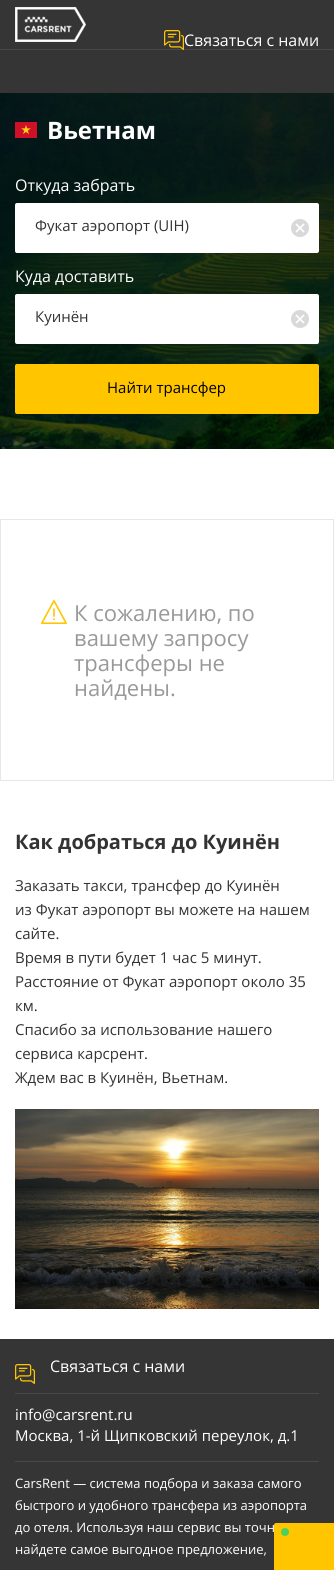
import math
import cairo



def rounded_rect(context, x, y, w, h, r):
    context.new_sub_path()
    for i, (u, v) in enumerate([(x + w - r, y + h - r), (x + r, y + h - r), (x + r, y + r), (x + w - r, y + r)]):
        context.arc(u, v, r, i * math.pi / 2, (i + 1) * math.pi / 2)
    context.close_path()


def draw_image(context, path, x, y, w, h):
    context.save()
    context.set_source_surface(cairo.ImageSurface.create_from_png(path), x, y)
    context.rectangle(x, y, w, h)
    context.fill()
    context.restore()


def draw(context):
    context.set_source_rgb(1, 1, 1)
    context.paint()
    context.set_source_rgb(53 / 255, 53 / 255, 53 / 255)
    context.rectangle(0, 0, 334, 93)
    context.fill()
    draw_image(context, "images/1.png", 15, 7, 71, 35)
    context.set_source_rgb(73 / 255, 73 / 255, 73 / 255)
    context.rectangle(0, 49, 334, 1)
    context.fill()
    draw_image(context, "images/2.png", 164, 30, 20, 20)
    draw_image(context, "images/3.png", 0, 93, 334, 356)
    draw_image(context, "images/4.png", 15, 122, 22, 16)
    context.set_source_rgb(1, 1, 1)
    rounded_rect(context, 15, 203, 304, 50, 2)
    context.fill()
    draw_image(context, "images/5.png", 291, 219, 18, 18)
    rounded_rect(context, 15, 294, 304, 50, 2)
    context.fill()
    draw_image(context, "images/5.png", 291, 310, 18, 18)
    context.set_source_rgb(1, 198 / 255, 0)
    rounded_rect(context, 15, 364, 304, 50, 2)
    context.fill()
    context.rectangle(0.5, 519.5, 333, 261)
    context.set_source_rgb(231 / 255, 231 / 255, 231 / 255)
    context.set_line_width(1)
    context.stroke()
    draw_image(context, "images/6.png", 41, 600, 26, 24)
    draw_image(context, "images/7.png", 15, 1109, 304, 200)
    context.set_source_rgb(53 / 255, 53 / 255, 53 / 255)
    context.rectangle(0, 1339, 334, 231)
    context.fill()
    draw_image(context, "images/8.png", 15, 1364, 20, 20)
    context.set_source_rgb(73 / 255, 73 / 255, 73 / 255)
    context.rectangle(15, 1393, 304, 1)
    context.fill()
    context.rectangle(15, 1461, 304, 1)
    context.fill()
    context.set_source_rgb(1, 198 / 255, 0)
    context.new_path()
    context.move_to(276, 1523)
    context.line_to(334, 1523)
    context.line_to(334, 1570)
    context.line_to(274, 1570)
    context.line_to(274, 1525)
    context.curve_to(274, 1524, 275, 1523, 276, 1523)
    context.close_path()
    context.fill()
    context.set_source_rgb(75 / 255, 208 / 255, 94 / 255)
    context.arc(285, 1532, 4, 0, 2 * math.pi)
    context.fill()
    context.select_font_face("Open Sans")
    context.set_font_size(16)
    context.set_source_rgb(1, 1, 1)
    context.move_to(184, 46)
    context.show_text("Связаться с нами")
    context.select_font_face("Open Sans", cairo.FontSlant.NORMAL, cairo.FontWeight.BOLD)
    context.set_font_size(24)
    context.move_to(47, 139)
    context.show_text("Вьетнам")
    context.select_font_face("Open Sans")
    context.set_font_size(16)
    context.move_to(15, 191)
    context.show_text("Откуда забрать")
    context.set_font_size(15)
    context.set_source_rgb(51 / 255, 51 / 255, 51 / 255)
    context.move_to(35, 231)
    context.show_text("Фукат аэропорт (UIH)")
    context.set_font_size(16)
    context.set_source_rgb(1, 1, 1)
    context.move_to(15, 282)
    context.show_text("Куда доставить")
    context.set_font_size(15)
    context.set_source_rgb(51 / 255, 51 / 255, 51 / 255)
    context.move_to(35, 322)
    context.show_text("Куинён")
    context.set_source_rgb(0, 0, 0)
    context.move_to(107, 393)
    context.show_text("Найти трансфер")
    context.set_font_size(22)
    context.set_source_rgb(153 / 255, 153 / 255, 153 / 255)
    context.move_to(74, 621)
    context.show_text("К сожалению, по")
    context.move_to(74, 646)
    context.show_text("вашему запросу")
    context.move_to(74, 671)
    context.show_text("трансферы не")
    context.move_to(74, 696)
    context.show_text("найдены.")
    context.select_font_face("Open Sans", cairo.FontSlant.NORMAL, cairo.FontWeight.BOLD)
    context.set_font_size(20)
    context.set_source_rgb(51 / 255, 51 / 255, 51 / 255)
    context.move_to(15, 849)
    context.show_text("Как добраться до Куинён")
    context.select_font_face("Open Sans")
    context.set_font_size(15)
    context.move_to(15, 891)
    context.show_text("Заказать такси, трансфер до Куинён")
    context.move_to(15, 915)
    context.show_text("из Фукат аэропорт вы можете на нашем")
    context.move_to(15, 939)
    context.show_text("сайте.")
    context.move_to(15, 963)
    context.show_text("Время в пути будет 1 час 5 минут.")
    context.move_to(15, 987)
    context.show_text("Расстояние от Фукат аэропорт около 35")
    context.move_to(15, 1011)
    context.show_text("км.")
    context.move_to(15, 1035)
    context.show_text("Спасибо за использование нашего")
    context.move_to(15, 1059)
    context.show_text("сервиса карсрент.")
    context.move_to(15, 1083)
    context.show_text("Ждем вас в Куинён, Вьетнам.")
    context.set_font_size(16)
    context.set_source_rgb(1, 1, 1)
    context.move_to(50, 1372)
    context.show_text("Связаться с нами")
    context.set_font_size(15)
    context.move_to(15, 1420)
    context.show_text("info@carsrent.ru")
    context.move_to(15, 1441)
    context.show_text("Москва, 1-й Щипковский переулок, д.1")
    context.set_font_size(13)
    context.move_to(15, 1488)
    context.show_text("CarsRent — система подбора и заказа самого")
    context.move_to(15, 1510)
    context.show_text("быстрого и удобного трансфера из аэропорта")
    context.move_to(15, 1532)
    context.show_text("до отеля. Используя наш сервис вы точн")
    context.move_to(15, 1554)
    context.show_text("найдете самое выгодное предложение,")


surface = cairo.ImageSurface(cairo.Format.RGB24, 334, 1570)
context = cairo.Context(surface)
options = cairo.FontOptions()
options.set_hint_metrics(cairo.HintMetrics.OFF)
options.set_hint_style(cairo.HintStyle.NONE)
context.set_font_options(options)
context.set_miter_limit(4)
draw(context)
surface.write_to_png("out.png")
